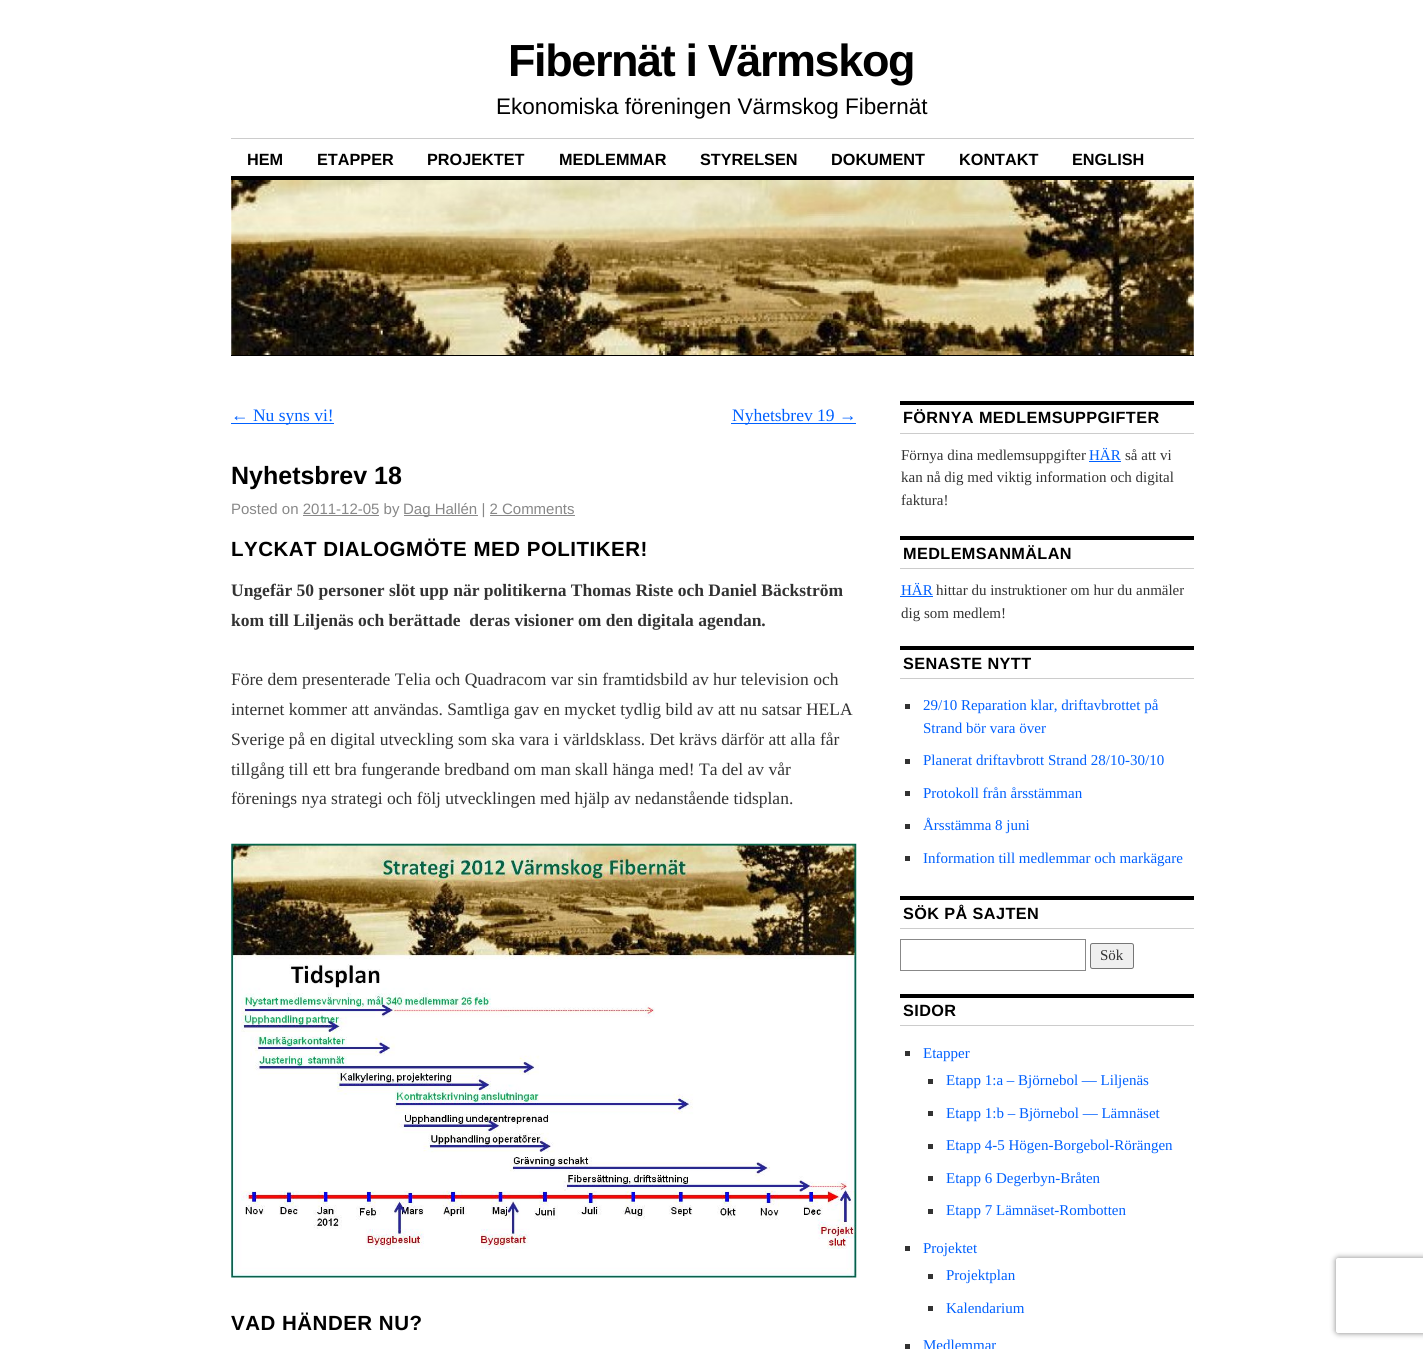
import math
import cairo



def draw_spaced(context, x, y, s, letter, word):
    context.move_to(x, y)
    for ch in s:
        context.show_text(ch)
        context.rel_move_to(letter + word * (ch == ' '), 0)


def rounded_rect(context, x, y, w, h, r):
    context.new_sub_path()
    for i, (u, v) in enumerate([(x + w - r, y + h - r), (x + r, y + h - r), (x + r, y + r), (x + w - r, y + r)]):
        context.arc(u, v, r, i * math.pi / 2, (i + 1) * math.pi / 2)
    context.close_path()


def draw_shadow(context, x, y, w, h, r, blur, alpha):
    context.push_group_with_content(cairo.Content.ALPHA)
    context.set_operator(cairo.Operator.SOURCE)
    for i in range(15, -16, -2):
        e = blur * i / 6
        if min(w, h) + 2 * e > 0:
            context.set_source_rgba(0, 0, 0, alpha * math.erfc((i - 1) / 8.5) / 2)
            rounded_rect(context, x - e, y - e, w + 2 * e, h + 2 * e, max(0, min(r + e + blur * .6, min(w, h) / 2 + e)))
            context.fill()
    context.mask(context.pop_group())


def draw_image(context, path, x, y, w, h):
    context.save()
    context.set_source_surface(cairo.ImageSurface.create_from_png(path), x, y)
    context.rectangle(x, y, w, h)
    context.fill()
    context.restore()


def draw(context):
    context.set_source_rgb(1, 1, 1)
    context.paint()
    context.set_source_rgb(204 / 255, 204 / 255, 204 / 255)
    context.rectangle(231, 138, 963, 1)
    context.fill()
    context.set_source_rgb(0, 0, 0)
    context.rectangle(231, 176, 963, 4)
    context.fill()
    draw_image(context, "images/1.png", 231, 180, 963, 175)
    context.rectangle(231, 355, 963, 1)
    context.fill()
    context.set_source_rgb(0, 96 / 255, 1)
    context.rectangle(231, 423, 103, 1)
    context.fill()
    context.rectangle(731, 423, 125, 1)
    context.fill()
    context.set_source_rgb(136 / 255, 136 / 255, 136 / 255)
    context.rectangle(404, 515, 74, 1)
    context.fill()
    context.rectangle(303, 515, 76, 1)
    context.fill()
    context.rectangle(490, 515, 85, 1)
    context.fill()
    draw_image(context, "images/2.png", 231, 843, 626, 435)
    context.set_source_rgb(0, 0, 0)
    context.rectangle(900, 401, 294, 4)
    context.fill()
    context.set_source_rgb(204 / 255, 204 / 255, 204 / 255)
    context.rectangle(900, 433, 294, 1)
    context.fill()
    context.set_source_rgb(0, 96 / 255, 1)
    context.rectangle(1089, 461, 32, 1)
    context.fill()
    context.set_source_rgb(0, 0, 0)
    context.rectangle(900, 536, 294, 4)
    context.fill()
    context.set_source_rgb(204 / 255, 204 / 255, 204 / 255)
    context.rectangle(900, 568, 294, 1)
    context.fill()
    context.set_source_rgb(0, 96 / 255, 1)
    context.rectangle(900, 596, 33, 1)
    context.fill()
    context.set_source_rgb(0, 0, 0)
    context.rectangle(900, 646, 294, 4)
    context.fill()
    context.set_source_rgb(204 / 255, 204 / 255, 204 / 255)
    context.rectangle(900, 678, 294, 1)
    context.fill()
    context.set_source_rgb(51 / 255, 51 / 255, 51 / 255)
    context.rectangle(905, 704, 5, 5)
    context.fill()
    context.rectangle(905, 759, 5, 5)
    context.fill()
    context.rectangle(905, 791, 5, 5)
    context.fill()
    context.rectangle(905, 824, 5, 5)
    context.fill()
    context.rectangle(905, 856, 5, 5)
    context.fill()
    context.set_source_rgb(0, 0, 0)
    context.rectangle(900, 896, 294, 4)
    context.fill()
    context.set_source_rgb(204 / 255, 204 / 255, 204 / 255)
    context.rectangle(900, 928, 294, 1)
    context.fill()
    context.rectangle(900.5, 939.5, 185, 31)
    context.set_source_rgb(136 / 255, 136 / 255, 136 / 255)
    context.set_line_width(1)
    context.stroke()
    context.set_source_rgb(239 / 255, 239 / 255, 239 / 255)
    rounded_rect(context, 1090.5, 943.5, 43, 25, 2)
    context.fill_preserve()
    context.set_source_rgb(118 / 255, 118 / 255, 118 / 255)
    context.stroke()
    context.set_source_rgb(0, 0, 0)
    context.rectangle(900, 994, 294, 4)
    context.fill()
    context.set_source_rgb(204 / 255, 204 / 255, 204 / 255)
    context.rectangle(900, 1025, 294, 1)
    context.fill()
    context.set_source_rgb(51 / 255, 51 / 255, 51 / 255)
    context.rectangle(905, 1051, 5, 5)
    context.fill()
    context.rectangle(928, 1079, 5, 5)
    context.fill()
    context.rectangle(928, 1111, 5, 5)
    context.fill()
    context.rectangle(928, 1144, 5, 5)
    context.fill()
    context.rectangle(928, 1176, 5, 5)
    context.fill()
    context.rectangle(928, 1209, 5, 5)
    context.fill()
    context.rectangle(905, 1246, 5, 5)
    context.fill()
    context.rectangle(928, 1274, 5, 5)
    context.fill()
    context.rectangle(928, 1306, 5, 5)
    context.fill()
    context.rectangle(905, 1344, 5, 5)
    context.fill()
    context.save()
    context.set_fill_rule(cairo.FillRule.EVEN_ODD)
    context.new_path()
    context.move_to(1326, 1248)
    context.line_to(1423, 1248)
    context.line_to(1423, 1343)
    context.line_to(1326, 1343)
    context.close_path()
    context.move_to(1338.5, 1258)
    context.line_to(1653.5, 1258)
    context.curve_to(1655, 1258, 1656, 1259, 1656, 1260.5)
    context.line_to(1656, 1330.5)
    context.curve_to(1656, 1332, 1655, 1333, 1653.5, 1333)
    context.line_to(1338.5, 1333)
    context.curve_to(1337, 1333, 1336, 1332, 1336, 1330.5)
    context.line_to(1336, 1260.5)
    context.curve_to(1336, 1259, 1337, 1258, 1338.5, 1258)
    context.close_path()
    context.clip()
    context.set_source_rgb(128 / 255, 128 / 255, 128 / 255)
    draw_shadow(context, 1336, 1258, 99, 75, 2.5, 3, 1)
    context.restore()
    context.select_font_face("Liberation Sans", cairo.FontSlant.NORMAL, cairo.FontWeight.BOLD)
    context.set_font_size(45)
    context.set_source_rgb(0, 0, 0)
    draw_spaced(context, 508, 76, "Fibernät i Värmskog", -1.4, 0)
    context.select_font_face("Liberation Sans")
    context.set_font_size(22.5)
    context.move_to(496, 114)
    context.show_text("Ekonomiska föreningen Värmskog Fibernät")
    context.select_font_face("Liberation Sans", cairo.FontSlant.NORMAL, cairo.FontWeight.BOLD)
    context.set_font_size(16.25)
    context.move_to(247, 165)
    context.show_text("HEM")
    context.move_to(317, 165)
    context.show_text("ETAPPER")
    context.move_to(427, 165)
    context.show_text("PROJEKTET")
    context.move_to(559, 165)
    context.show_text("MEDLEMMAR")
    context.move_to(700, 165)
    context.show_text("STYRELSEN")
    context.move_to(831, 165)
    context.show_text("DOKUMENT")
    context.move_to(959, 165)
    context.show_text("KONTAKT")
    context.move_to(1072, 165)
    context.show_text("ENGLISH")
    context.select_font_face("Liberation Serif")
    context.set_font_size(17.5)
    context.set_source_rgb(0, 96 / 255, 1)
    context.move_to(231, 421)
    context.show_text("← Nu syns vi!")
    context.move_to(732, 421)
    context.show_text("Nyhetsbrev 19 →")
    context.select_font_face("Liberation Sans", cairo.FontSlant.NORMAL, cairo.FontWeight.BOLD)
    context.set_font_size(25)
    context.set_source_rgb(0, 0, 0)
    context.move_to(231, 484)
    context.show_text("Nyhetsbrev 18")
    context.select_font_face("Liberation Sans")
    context.set_font_size(15)
    context.set_source_rgb(136 / 255, 136 / 255, 136 / 255)
    context.move_to(231, 514)
    context.show_text("Posted on 2011-12-05 by")
    context.move_to(403, 514)
    context.show_text("Dag Hallén | 2 Comments")
    context.select_font_face("Liberation Sans", cairo.FontSlant.NORMAL, cairo.FontWeight.BOLD)
    context.set_font_size(20.5)
    context.set_source_rgb(0, 0, 0)
    draw_spaced(context, 231, 556, "LYCKAT DIALOGMÖTE MED POLITIKER!", 0.5, 0)
    context.select_font_face("Liberation Serif", cairo.FontSlant.NORMAL, cairo.FontWeight.BOLD)
    context.set_font_size(17.5)
    context.set_source_rgb(51 / 255, 51 / 255, 51 / 255)
    context.move_to(231, 596)
    context.show_text("Ungefär 50 personer slöt upp när politikerna Thomas Riste och Daniel Bäckström")
    context.move_to(231, 626)
    context.show_text("kom till Liljenäs och berättade  deras visioner om den digitala agendan.")
    context.select_font_face("Liberation Serif")
    context.move_to(231, 685)
    context.show_text("Före dem presenterade Telia och Quadracom var sin framtidsbild av hur television och")
    context.move_to(231, 715)
    context.show_text("internet kommer att användas. Samtliga gav en mycket tydlig bild av att nu satsar HELA")
    context.move_to(231, 745)
    context.show_text("Sverige på en digital utveckling som ska vara i världsklass. Det krävs därför att alla får")
    context.move_to(231, 775)
    context.show_text("tillgång till ett bra fungerande bredband om man skall hänga med! Ta del av vår")
    context.move_to(231, 804)
    context.show_text("förenings nya strategi och följ utvecklingen med hjälp av nedanstående tidsplan.")
    context.select_font_face("Liberation Sans", cairo.FontSlant.NORMAL, cairo.FontWeight.BOLD)
    context.set_font_size(20.5)
    context.set_source_rgb(0, 0, 0)
    draw_spaced(context, 231, 1330, "VAD HÄNDER NU?", 0.5, 0)
    context.set_font_size(16.25)
    draw_spaced(context, 903, 423, "FÖRNYA MEDLEMSUPPGIFTER", 0.4, 0)
    context.select_font_face("Liberation Serif")
    context.set_font_size(15)
    context.set_source_rgb(51 / 255, 51 / 255, 51 / 255)
    context.move_to(901, 460)
    context.show_text("Förnya dina medlemsuppgifter")
    context.set_source_rgb(0, 96 / 255, 1)
    context.move_to(1089, 460)
    context.show_text("HÄR")
    context.set_source_rgb(51 / 255, 51 / 255, 51 / 255)
    context.move_to(1125, 460)
    context.show_text("så att vi")
    context.move_to(901, 482)
    context.show_text("kan nå dig med viktig information och digital")
    context.move_to(901, 505)
    context.show_text("faktura!")
    context.select_font_face("Liberation Sans", cairo.FontSlant.NORMAL, cairo.FontWeight.BOLD)
    context.set_font_size(16.25)
    context.set_source_rgb(0, 0, 0)
    draw_spaced(context, 903, 559, "MEDLEMSANMÄLAN", 0.4, 0)
    context.select_font_face("Liberation Serif")
    context.set_font_size(15)
    context.set_source_rgb(0, 96 / 255, 1)
    context.move_to(901, 595)
    context.show_text("HÄR")
    context.set_source_rgb(51 / 255, 51 / 255, 51 / 255)
    context.move_to(936, 595)
    context.show_text("hittar du instruktioner om hur du anmäler")
    context.move_to(901, 618)
    context.show_text("dig som medlem!")
    context.select_font_face("Liberation Sans", cairo.FontSlant.NORMAL, cairo.FontWeight.BOLD)
    context.set_font_size(16.25)
    context.set_source_rgb(0, 0, 0)
    draw_spaced(context, 903, 669, "SENASTE NYTT", 0.4, 0)
    context.select_font_face("Liberation Serif")
    context.set_font_size(15)
    context.set_source_rgb(0, 96 / 255, 1)
    context.move_to(923, 710)
    context.show_text("29/10 Reparation klar, driftavbrottet på")
    context.move_to(923, 733)
    context.show_text("Strand bör vara över")
    context.move_to(923, 765)
    context.show_text("Planerat driftavbrott Strand 28/10-30/10")
    context.move_to(923, 798)
    context.show_text("Protokoll från årsstämman")
    context.move_to(923, 830)
    context.show_text("Årsstämma 8 juni")
    context.move_to(923, 863)
    context.show_text("Information till medlemmar och markägare")
    context.select_font_face("Liberation Sans", cairo.FontSlant.NORMAL, cairo.FontWeight.BOLD)
    context.set_font_size(16.25)
    context.set_source_rgb(0, 0, 0)
    draw_spaced(context, 903, 919, "SÖK PÅ SAJTEN", 0.4, 0)
    context.select_font_face("Liberation Serif")
    context.set_font_size(15)
    context.set_source_rgb(51 / 255, 51 / 255, 51 / 255)
    context.move_to(1100, 960)
    context.show_text("Sök")
    context.select_font_face("Liberation Sans", cairo.FontSlant.NORMAL, cairo.FontWeight.BOLD)
    context.set_font_size(16.25)
    context.set_source_rgb(0, 0, 0)
    draw_spaced(context, 903, 1016, "SIDOR", 0.4, 0)
    context.select_font_face("Liberation Serif")
    context.set_font_size(15)
    context.set_source_rgb(0, 96 / 255, 1)
    context.move_to(923, 1058)
    context.show_text("Etapper")
    context.move_to(946, 1085)
    context.show_text("Etapp 1:a – Björnebol — Liljenäs")
    context.move_to(946, 1118)
    context.show_text("Etapp 1:b – Björnebol — Lämnäset")
    context.move_to(946, 1150)
    context.show_text("Etapp 4-5 Högen-Borgebol-Rörängen")
    context.move_to(946, 1183)
    context.show_text("Etapp 6 Degerbyn-Bråten")
    context.move_to(946, 1215)
    context.show_text("Etapp 7 Lämnäset-Rombotten")
    context.move_to(923, 1253)
    context.show_text("Projektet")
    context.move_to(946, 1280)
    context.show_text("Projektplan")
    context.move_to(946, 1313)
    context.show_text("Kalendarium")
    context.move_to(923, 1350)
    context.show_text("Medlemmar")


surface = cairo.ImageSurface(cairo.Format.RGB24, 1423, 1349)
context = cairo.Context(surface)
options = cairo.FontOptions()
options.set_hint_metrics(cairo.HintMetrics.OFF)
options.set_hint_style(cairo.HintStyle.NONE)
context.set_font_options(options)
context.set_miter_limit(4)
draw(context)
surface.write_to_png("out.png")
